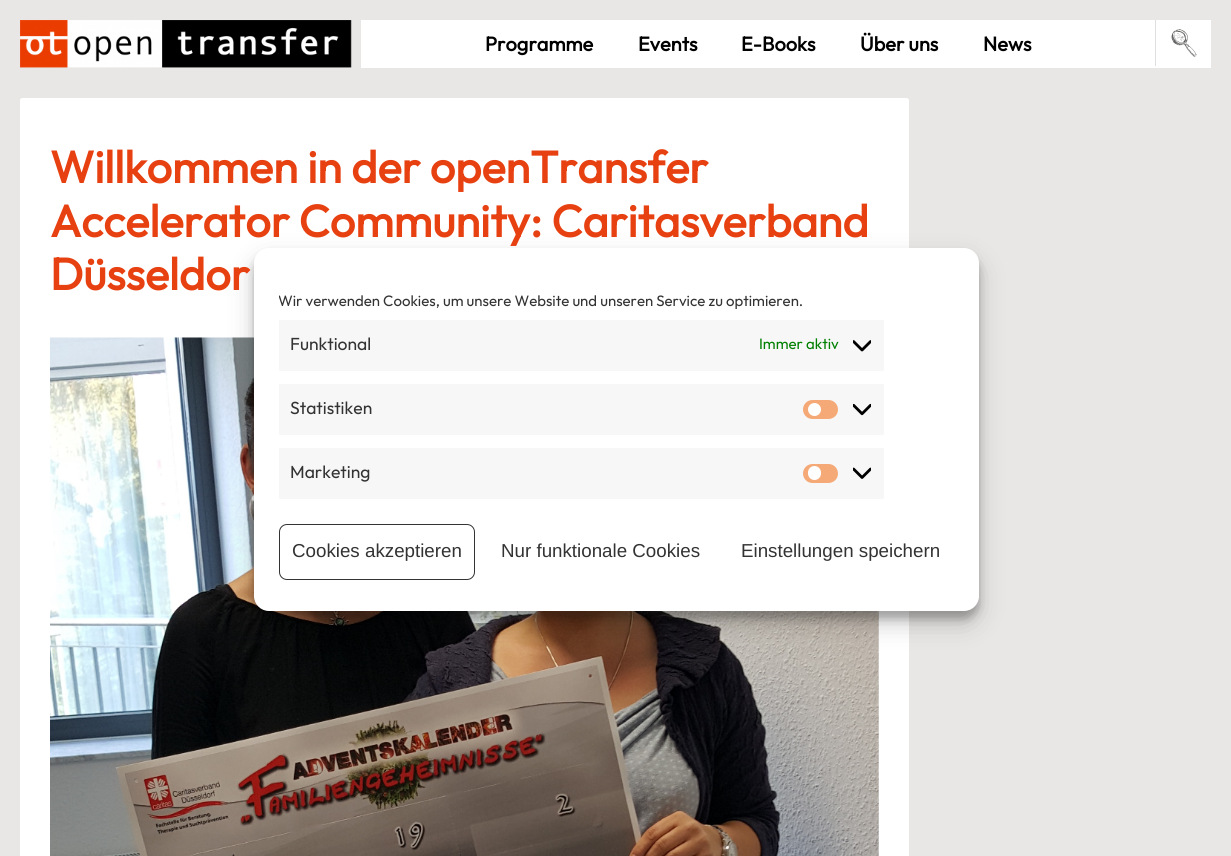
import math
import cairo



def rounded_rect(context, x, y, w, h, r):
    context.new_sub_path()
    for i, (u, v) in enumerate([(x + w - r, y + h - r), (x + r, y + h - r), (x + r, y + r), (x + w - r, y + r)]):
        context.arc(u, v, r, i * math.pi / 2, (i + 1) * math.pi / 2)
    context.close_path()


def draw_shadow(context, x, y, w, h, r, blur, alpha):
    context.push_group_with_content(cairo.Content.ALPHA)
    context.set_operator(cairo.Operator.SOURCE)
    for i in range(15, -16, -2):
        e = blur * i / 6
        if min(w, h) + 2 * e > 0:
            context.set_source_rgba(0, 0, 0, alpha * math.erfc((i - 1) / 8.5) / 2)
            rounded_rect(context, x - e, y - e, w + 2 * e, h + 2 * e, max(0, min(r + e + blur * .6, min(w, h) / 2 + e)))
            context.fill()
    context.mask(context.pop_group())


def draw_image(context, path, x, y, w, h):
    context.save()
    context.set_source_surface(cairo.ImageSurface.create_from_png(path), x, y)
    context.rectangle(x, y, w, h)
    context.fill()
    context.restore()


def draw(context):
    context.set_source_rgb(233 / 255, 231 / 255, 229 / 255)
    context.paint()
    draw_image(context, "images/1.png", 20, 20, 332, 48)
    context.set_source_rgb(1, 1, 1)
    context.rectangle(361, 20, 850, 48)
    context.fill()
    context.set_source_rgb(223 / 255, 223 / 255, 223 / 255)
    context.rectangle(1155, 20, 1, 46)
    context.fill()
    draw_image(context, "images/2.png", 1171, 29, 26, 28)
    context.set_source_rgb(1, 1, 1)
    rounded_rect(context, 20, 98, 889, 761, 2.5)
    context.fill()
    draw_image(context, "images/3.png", 50, 337, 829, 519)
    context.set_source_rgb(0, 0, 0)
    draw_shadow(context, 254, 255, 725, 364, 15, 4, 0.23)
    draw_shadow(context, 254, 260, 725, 364, 15, 12.5, 0.19)
    context.set_source_rgb(1, 1, 1)
    rounded_rect(context, 254, 248, 725, 363, 15)
    context.fill()
    context.set_source_rgb(247 / 255, 247 / 255, 247 / 255)
    context.rectangle(279, 320, 605, 51)
    context.fill()
    draw_image(context, "images/4.png", 853, 340, 18, 12)
    context.rectangle(279, 384, 605, 51)
    context.fill()
    context.set_source_rgb(244 / 255, 169 / 255, 119 / 255)
    rounded_rect(context, 803, 400, 35, 19, 9.5)
    context.fill()
    context.set_source_rgb(1, 1, 1)
    context.arc(814.5, 409.5, 6.5, 0, 2 * math.pi)
    context.fill()
    draw_image(context, "images/5.png", 853, 403, 18, 13)
    context.set_source_rgb(247 / 255, 247 / 255, 247 / 255)
    context.rectangle(279, 448, 605, 51)
    context.fill()
    context.set_source_rgb(244 / 255, 169 / 255, 119 / 255)
    rounded_rect(context, 803, 464, 35, 19, 9.5)
    context.fill()
    context.set_source_rgb(1, 1, 1)
    rounded_rect(context, 808, 466, 13, 14, 6.5)
    context.fill()
    draw_image(context, "images/6.png", 853, 467, 18, 12)
    rounded_rect(context, 279.5, 524.5, 195, 55, 7.5)
    context.set_source_rgb(51 / 255, 51 / 255, 51 / 255)
    context.set_line_width(1)
    context.stroke()
    context.select_font_face("Outfit", cairo.FontSlant.NORMAL, cairo.FontWeight.BOLD)
    context.set_font_size(20)
    context.set_source_rgb(0, 0, 0)
    context.move_to(485, 51)
    context.show_text("Programme")
    context.move_to(638, 51)
    context.show_text("Events")
    context.move_to(741, 51)
    context.show_text("E-Books")
    context.move_to(860, 51)
    context.show_text("Über uns")
    context.move_to(983, 51)
    context.show_text("News")
    context.set_font_size(45)
    context.set_source_rgb(231 / 255, 64 / 255, 17 / 255)
    context.move_to(50, 183)
    context.show_text("Willkommen in der openTransfer")
    context.move_to(50, 237)
    context.show_text("Accelerator Community: Caritasverband")
    context.move_to(50, 290)
    context.show_text("Düsseldor")
    context.save()
    context.rectangle(279, 291, 675, 208)
    context.clip()
    context.select_font_face("Outfit Thin")
    context.set_font_size(15)
    context.set_source_rgb(51 / 255, 51 / 255, 51 / 255)
    context.move_to(278, 306)
    context.show_text("Wir verwenden Cookies, um unsere Website und unseren Service zu optimieren.")
    context.restore()
    context.select_font_face("Outfit Thin")
    context.set_font_size(17.5)
    context.set_source_rgb(51 / 255, 51 / 255, 51 / 255)
    context.move_to(290, 350)
    context.show_text("Funktional")
    context.set_font_size(15)
    context.set_source_rgb(0, 128 / 255, 0)
    context.move_to(759, 349)
    context.show_text("Immer aktiv")
    context.set_font_size(17.5)
    context.set_source_rgb(51 / 255, 51 / 255, 51 / 255)
    context.move_to(290, 414)
    context.show_text("Statistiken")
    context.move_to(290, 478)
    context.show_text("Marketing")
    context.select_font_face("Liberation Sans")
    context.set_font_size(18.75)
    context.move_to(292, 557)
    context.show_text("Cookies akzeptieren")
    context.move_to(501, 557)
    context.show_text("Nur funktionale Cookies")
    context.move_to(741, 557)
    context.show_text("Einstellungen speichern")


surface = cairo.ImageSurface(cairo.Format.RGB24, 1231, 856)
context = cairo.Context(surface)
options = cairo.FontOptions()
options.set_hint_metrics(cairo.HintMetrics.OFF)
options.set_hint_style(cairo.HintStyle.NONE)
context.set_font_options(options)
context.set_miter_limit(4)
draw(context)
surface.write_to_png("out.png")
